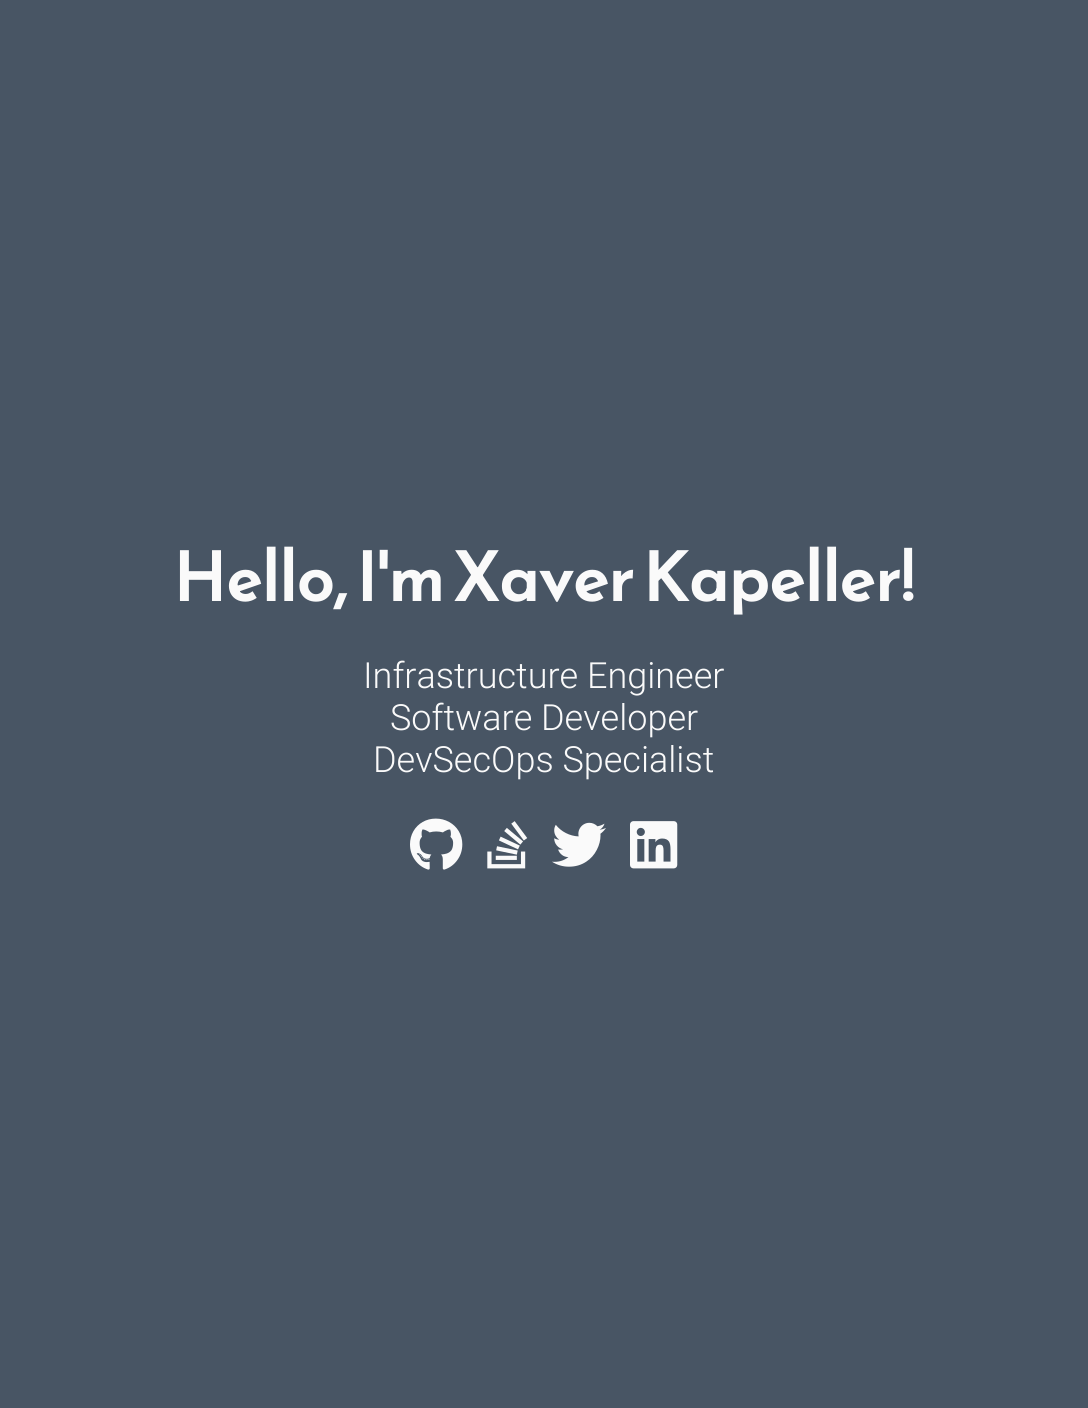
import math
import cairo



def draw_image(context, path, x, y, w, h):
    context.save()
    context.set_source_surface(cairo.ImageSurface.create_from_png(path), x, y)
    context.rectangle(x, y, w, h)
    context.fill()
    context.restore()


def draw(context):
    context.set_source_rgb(72 / 255, 85 / 255, 100 / 255)
    context.paint()
    draw_image(context, "images/1.png", 410, 818, 53, 52)
    draw_image(context, "images/2.png", 487, 821, 41, 48)
    draw_image(context, "images/3.png", 552, 822, 54, 45)
    draw_image(context, "images/4.png", 630, 821, 48, 48)
    context.select_font_face("Reem Kufi", cairo.FontSlant.NORMAL, cairo.FontWeight.BOLD)
    context.set_font_size(67.5)
    context.set_source_rgb(250 / 255, 250 / 255, 250 / 255)
    context.move_to(173, 601)
    context.show_text("Hello, I'm Xaver Kapeller!")
    context.select_font_face("Roboto Light")
    context.set_font_size(36)
    context.move_to(363, 688)
    context.show_text("Infrastructure Engineer")
    context.move_to(390, 730)
    context.show_text("Software Developer")
    context.move_to(373, 772)
    context.show_text("DevSecOps Specialist")


surface = cairo.ImageSurface(cairo.Format.RGB24, 1088, 1408)
context = cairo.Context(surface)
options = cairo.FontOptions()
options.set_hint_metrics(cairo.HintMetrics.OFF)
options.set_hint_style(cairo.HintStyle.NONE)
context.set_font_options(options)
context.set_miter_limit(4)
draw(context)
surface.write_to_png("out.png")
